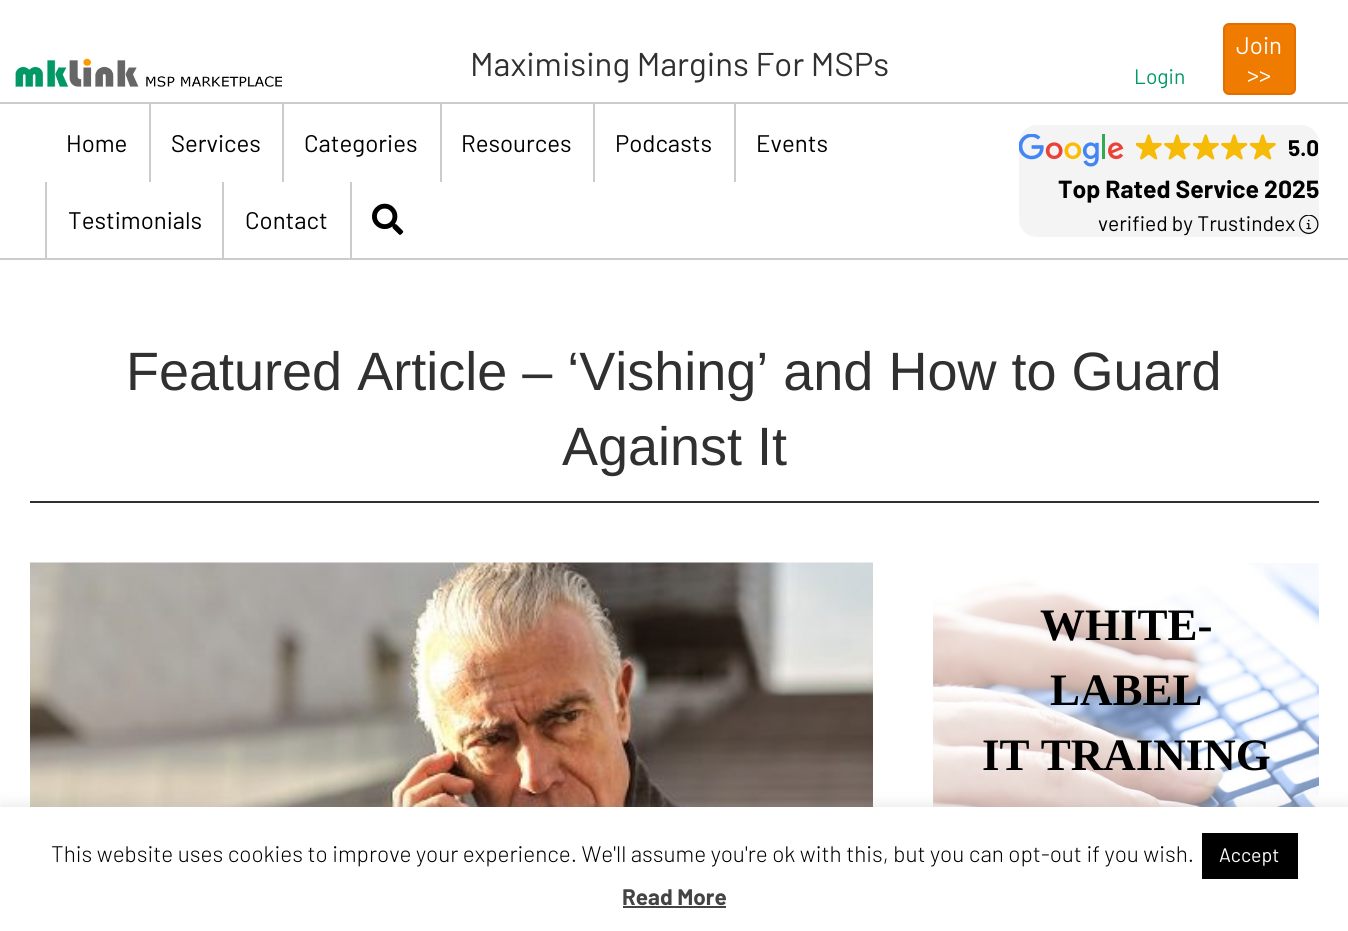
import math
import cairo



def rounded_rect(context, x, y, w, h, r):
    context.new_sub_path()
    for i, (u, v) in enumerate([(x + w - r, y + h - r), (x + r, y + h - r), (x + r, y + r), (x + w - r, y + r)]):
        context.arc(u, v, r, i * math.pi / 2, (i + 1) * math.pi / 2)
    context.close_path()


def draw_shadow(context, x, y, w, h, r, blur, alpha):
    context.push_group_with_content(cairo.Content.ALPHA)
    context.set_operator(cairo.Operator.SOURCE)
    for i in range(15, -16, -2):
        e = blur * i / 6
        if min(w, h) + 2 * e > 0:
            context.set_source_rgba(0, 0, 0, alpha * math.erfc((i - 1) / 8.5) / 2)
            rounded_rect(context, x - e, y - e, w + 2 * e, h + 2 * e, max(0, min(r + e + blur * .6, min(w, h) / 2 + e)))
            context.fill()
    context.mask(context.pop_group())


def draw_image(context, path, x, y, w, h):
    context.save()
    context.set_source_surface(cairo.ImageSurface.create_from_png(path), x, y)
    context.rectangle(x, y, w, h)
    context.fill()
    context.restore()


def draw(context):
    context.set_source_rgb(1, 1, 1)
    context.paint()
    draw_image(context, "images/1.png", 15, 58, 267, 29)
    context.set_source_rgb(239 / 255, 123 / 255, 0)
    rounded_rect(context, 1224, 24, 71, 70, 5)
    context.fill_preserve()
    context.set_source_rgb(227 / 255, 111 / 255, 0)
    context.stroke()
    context.set_source_rgb(204 / 255, 204 / 255, 204 / 255)
    context.rectangle(0, 102, 1348, 2)
    context.fill()
    context.rectangle(0, 258, 1348, 2)
    context.fill()
    context.rectangle(149, 104, 2, 78)
    context.fill()
    context.rectangle(282, 104, 2, 78)
    context.fill()
    context.rectangle(440, 104, 2, 78)
    context.fill()
    context.rectangle(593, 104, 2, 78)
    context.fill()
    context.rectangle(734, 104, 2, 78)
    context.fill()
    context.rectangle(45, 182, 2, 76)
    context.fill()
    context.rectangle(350, 182, 2, 76)
    context.fill()
    context.rectangle(222, 182, 2, 76)
    context.fill()
    draw_image(context, "images/2.png", 372, 203, 32, 32)
    context.set_source_rgb(244 / 255, 244 / 255, 244 / 255)
    rounded_rect(context, 1019, 125, 300, 112, 18)
    context.fill()
    draw_image(context, "images/3.png", 1019, 134, 105, 33)
    draw_image(context, "images/4.png", 1136, 134, 26, 26)
    draw_image(context, "images/5.png", 1164, 134, 27, 26)
    draw_image(context, "images/4.png", 1193, 134, 26, 26)
    draw_image(context, "images/5.png", 1221, 134, 27, 26)
    draw_image(context, "images/4.png", 1250, 134, 26, 26)
    draw_image(context, "images/6.png", 1299, 215, 20, 19)
    context.set_source_rgb(48 / 255, 48 / 255, 48 / 255)
    context.rectangle(30, 501, 1289, 2)
    context.fill()
    draw_image(context, "images/7.png", 30, 562, 843, 245)
    draw_image(context, "images/8.png", 933, 563, 386, 244)
    context.set_source_rgb(172 / 255, 171 / 255, 171 / 255)
    draw_shadow(context, 0, 806, 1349, 124, 0, 7.5, 0.3)
    context.set_source_rgb(1, 1, 1)
    context.rectangle(0, 807, 1348, 124)
    context.fill()
    context.set_source_rgb(0, 0, 0)
    context.rectangle(1202, 833, 96, 46)
    context.fill()
    context.set_source_rgb(68 / 255, 68 / 255, 68 / 255)
    context.rectangle(623, 906, 103, 2)
    context.fill()
    context.select_font_face("Barlow")
    context.set_font_size(33)
    context.set_source_rgb(48 / 255, 48 / 255, 48 / 255)
    context.move_to(470, 76)
    context.show_text("Maximising Margins For MSPs")
    context.set_font_size(21)
    context.set_source_rgb(0, 153 / 255, 102 / 255)
    context.move_to(1134, 84)
    context.show_text("Login")
    context.set_font_size(24)
    context.set_source_rgb(1, 1, 1)
    context.move_to(1236, 54)
    context.show_text("Join")
    context.move_to(1247, 83)
    context.show_text(">>")
    context.set_source_rgb(0, 0, 0)
    context.move_to(66, 152)
    context.show_text("Home")
    context.move_to(171, 152)
    context.show_text("Services")
    context.move_to(304, 152)
    context.show_text("Categories")
    context.move_to(461, 152)
    context.show_text("Resources")
    context.move_to(615, 152)
    context.show_text("Podcasts")
    context.move_to(756, 152)
    context.show_text("Events")
    context.move_to(68, 229)
    context.show_text("Testimonials")
    context.move_to(245, 229)
    context.show_text("Contact")
    context.select_font_face("Barlow", cairo.FontSlant.NORMAL, cairo.FontWeight.BOLD)
    context.set_font_size(22.5)
    context.move_to(1288, 156)
    context.show_text("5.0")
    context.set_font_size(24.75)
    context.move_to(1058, 198)
    context.show_text("Top Rated Service 2025")
    context.select_font_face("Barlow")
    context.set_font_size(21)
    context.move_to(1098, 231)
    context.show_text("verified by Trustindex")
    context.select_font_face("Liberation Sans")
    context.set_font_size(54)
    context.set_source_rgb(48 / 255, 48 / 255, 48 / 255)
    context.move_to(126, 390)
    context.show_text("Featured Article – ‘Vishing’ and How to Guard")
    context.move_to(562, 465)
    context.show_text("Against It")
    context.select_font_face("Liberation Serif", cairo.FontSlant.NORMAL, cairo.FontWeight.BOLD)
    context.set_font_size(45)
    context.set_source_rgb(0, 0, 0)
    context.move_to(1040, 640)
    context.show_text("WHITE-")
    context.move_to(1050, 705)
    context.show_text("LABEL")
    context.move_to(982, 770)
    context.show_text("IT TRAINING")
    context.select_font_face("Barlow Light")
    context.set_font_size(22.5)
    context.move_to(51, 862)
    context.show_text("This website uses cookies to improve your experience. We'll assume you're ok with this, but you can opt-out if you wish.")
    context.select_font_face("Barlow")
    context.set_font_size(19.5)
    context.set_source_rgb(1, 1, 1)
    context.move_to(1219, 862)
    context.show_text("Accept")
    context.select_font_face("Barlow", cairo.FontSlant.NORMAL, cairo.FontWeight.BOLD)
    context.set_font_size(22.5)
    context.set_source_rgb(68 / 255, 68 / 255, 68 / 255)
    context.move_to(622, 905)
    context.show_text("Read More")


surface = cairo.ImageSurface(cairo.Format.RGB24, 1348, 931)
context = cairo.Context(surface)
options = cairo.FontOptions()
options.set_hint_metrics(cairo.HintMetrics.OFF)
options.set_hint_style(cairo.HintStyle.NONE)
context.set_font_options(options)
context.set_miter_limit(4)
draw(context)
surface.write_to_png("out.png")
